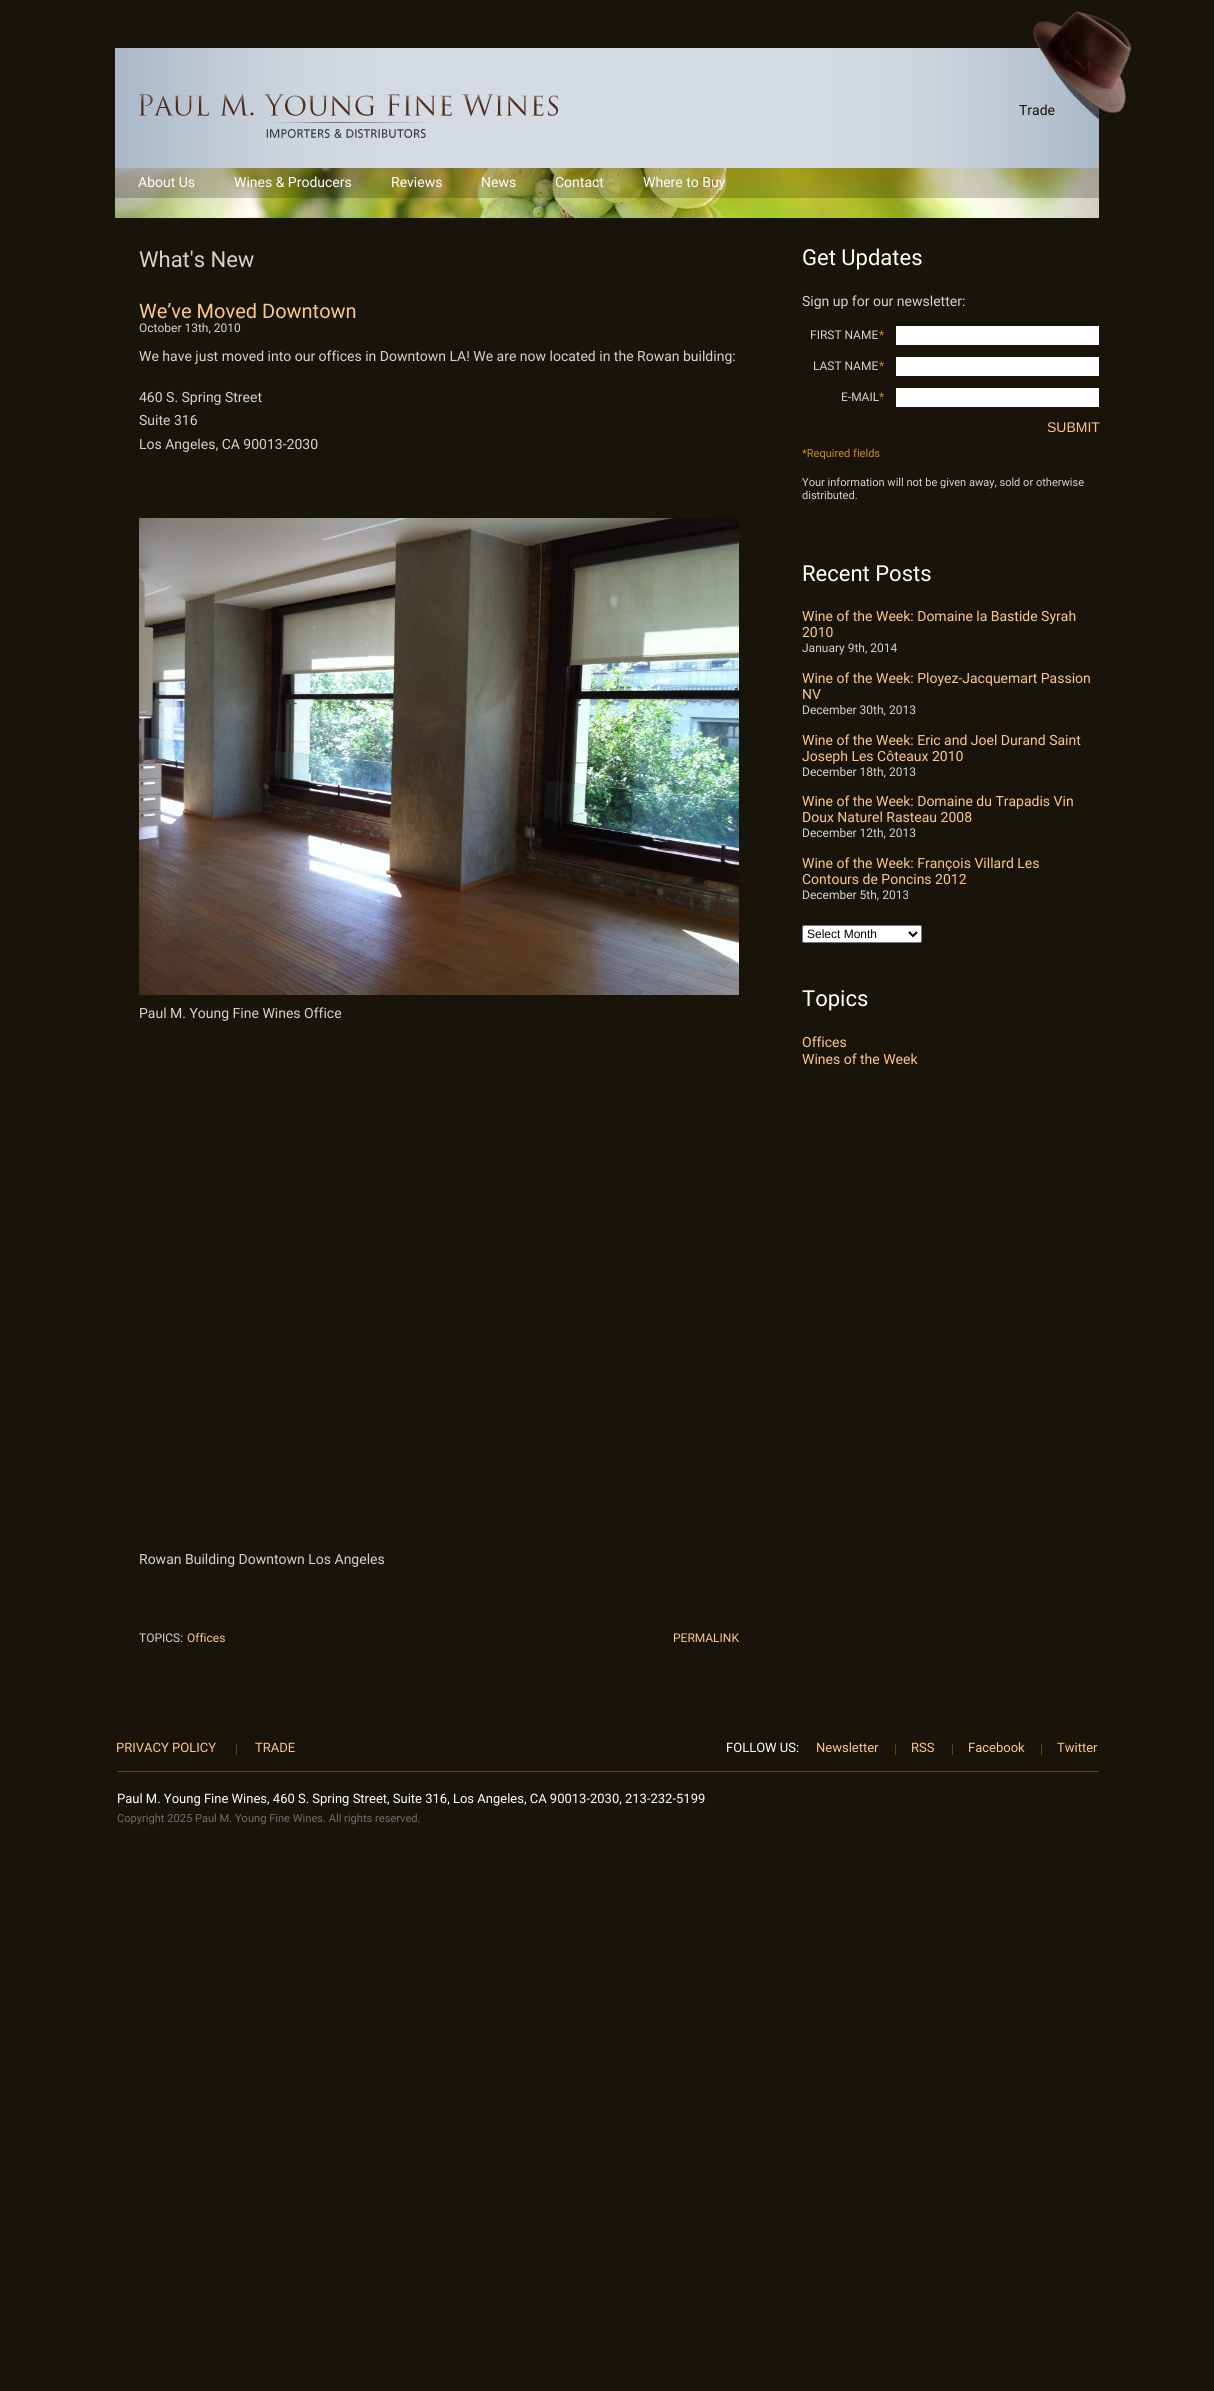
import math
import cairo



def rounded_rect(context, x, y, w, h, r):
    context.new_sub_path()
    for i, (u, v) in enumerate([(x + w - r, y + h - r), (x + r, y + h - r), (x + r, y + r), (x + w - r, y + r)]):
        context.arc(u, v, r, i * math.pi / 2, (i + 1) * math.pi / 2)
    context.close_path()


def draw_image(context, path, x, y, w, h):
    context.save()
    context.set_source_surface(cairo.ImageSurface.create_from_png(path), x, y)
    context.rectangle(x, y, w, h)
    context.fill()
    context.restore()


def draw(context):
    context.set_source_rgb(25 / 255, 20 / 255, 9 / 255)
    context.paint()
    draw_image(context, "images/1.png", 115, 48, 984, 120)
    draw_image(context, "images/2.png", 139, 94, 419, 44)
    draw_image(context, "images/3.png", 1033, 11, 99, 109)
    draw_image(context, "images/4.png", 115, 168, 984, 50)
    context.set_source_rgba(0, 0, 0, 0.2)
    context.rectangle(115, 168, 984, 30)
    context.fill()
    draw_image(context, "images/5.png", 139, 518, 600, 477)
    context.set_source_rgb(1, 1, 1)
    context.rectangle(896, 326, 203, 19)
    context.fill()
    context.rectangle(896, 357, 203, 19)
    context.fill()
    context.rectangle(896, 388, 203, 19)
    context.fill()
    rounded_rect(context, 802.5, 925.5, 119, 17, 1.5)
    context.fill_preserve()
    context.set_source_rgb(118 / 255, 118 / 255, 118 / 255)
    context.set_line_width(1)
    context.stroke()
    context.new_path()
    context.move_to(909, 932)
    context.line_to(913, 936)
    context.line_to(917, 932)
    context.set_source_rgb(0, 0, 0)
    context.set_line_width(2)
    context.stroke()
    context.set_source_rgb(97 / 255, 66 / 255, 14 / 255)
    context.rectangle(117, 1771, 982, 1)
    context.fill()
    context.rectangle(236, 1744, 1, 11)
    context.fill()
    context.rectangle(895, 1744, 1, 11)
    context.fill()
    context.rectangle(952, 1744, 1, 11)
    context.fill()
    context.rectangle(1041, 1744, 1, 11)
    context.fill()
    context.select_font_face("Roboto")
    context.set_font_size(14)
    context.set_source_rgb(25 / 255, 20 / 255, 9 / 255)
    context.move_to(1019, 115)
    context.show_text("Trade")
    context.set_source_rgb(1, 1, 1)
    context.move_to(138, 187)
    context.show_text("About Us")
    context.move_to(234, 187)
    context.show_text("Wines & Producers")
    context.move_to(391, 187)
    context.show_text("Reviews")
    context.move_to(481, 187)
    context.show_text("News")
    context.move_to(555, 187)
    context.show_text("Contact")
    context.move_to(643, 187)
    context.show_text("Where to Buy")
    context.set_font_size(22)
    context.set_source_rgb(211 / 255, 210 / 255, 208 / 255)
    context.move_to(139, 267)
    context.show_text("What's New")
    context.set_font_size(20)
    context.set_source_rgb(253 / 255, 198 / 255, 137 / 255)
    context.move_to(139, 318)
    context.show_text("We’ve Moved Downtown")
    context.set_font_size(12)
    context.set_source_rgb(211 / 255, 210 / 255, 208 / 255)
    context.move_to(139, 332)
    context.show_text("October 13th, 2010")
    context.set_font_size(14)
    context.move_to(139, 361)
    context.show_text("We have just moved into our offices in Downtown LA! We are now located in the Rowan building:")
    context.move_to(139, 402)
    context.show_text("460 S. Spring Street")
    context.move_to(139, 425)
    context.show_text("Suite 316")
    context.move_to(139, 449)
    context.show_text("Los Angeles, CA 90013-2030")
    context.move_to(139, 1018)
    context.show_text("Paul M. Young Fine Wines Office")
    context.move_to(139, 1564)
    context.show_text("Rowan Building Downtown Los Angeles")
    context.set_font_size(12)
    context.move_to(139, 1642)
    context.show_text("TOPICS:")
    context.set_source_rgb(253 / 255, 198 / 255, 137 / 255)
    context.move_to(187, 1642)
    context.show_text("Offices")
    context.move_to(673, 1642)
    context.show_text("PERMALINK")
    context.set_font_size(22)
    context.set_source_rgb(1, 1, 1)
    context.move_to(802, 265)
    context.show_text("Get Updates")
    context.set_font_size(14)
    context.set_source_rgb(211 / 255, 210 / 255, 208 / 255)
    context.move_to(802, 306)
    context.show_text("Sign up for our newsletter:")
    context.set_font_size(12)
    context.move_to(810, 339)
    context.show_text("FIRST NAME")
    context.set_source_rgb(204 / 255, 139 / 255, 29 / 255)
    context.move_to(879, 339)
    context.show_text("*")
    context.set_source_rgb(211 / 255, 210 / 255, 208 / 255)
    context.move_to(813, 370)
    context.show_text("LAST NAME")
    context.set_source_rgb(204 / 255, 139 / 255, 29 / 255)
    context.move_to(879, 370)
    context.show_text("*")
    context.set_source_rgb(211 / 255, 210 / 255, 208 / 255)
    context.move_to(841, 401)
    context.show_text("E-MAIL")
    context.set_source_rgb(204 / 255, 139 / 255, 29 / 255)
    context.move_to(879, 401)
    context.show_text("*")
    context.select_font_face("Liberation Sans")
    context.set_font_size(14)
    context.set_source_rgb(253 / 255, 198 / 255, 137 / 255)
    context.move_to(1047, 432)
    context.show_text("SUBMIT")
    context.select_font_face("Roboto")
    context.set_font_size(11.05)
    context.set_source_rgb(204 / 255, 139 / 255, 29 / 255)
    context.move_to(802, 457)
    context.show_text("*Required fields")
    context.set_source_rgb(211 / 255, 210 / 255, 208 / 255)
    context.move_to(802, 486)
    context.show_text("Your information will not be given away, sold or otherwise")
    context.move_to(802, 499)
    context.show_text("distributed.")
    context.set_font_size(22)
    context.set_source_rgb(1, 1, 1)
    context.move_to(802, 581)
    context.show_text("Recent Posts")
    context.set_font_size(14)
    context.set_source_rgb(253 / 255, 198 / 255, 137 / 255)
    context.move_to(802, 621)
    context.show_text("Wine of the Week: Domaine la Bastide Syrah")
    context.move_to(802, 637)
    context.show_text("2010")
    context.set_font_size(12)
    context.set_source_rgb(211 / 255, 210 / 255, 208 / 255)
    context.move_to(802, 652)
    context.show_text("January 9th, 2014")
    context.set_font_size(14)
    context.set_source_rgb(253 / 255, 198 / 255, 137 / 255)
    context.move_to(802, 683)
    context.show_text("Wine of the Week: Ployez-Jacquemart Passion")
    context.move_to(802, 699)
    context.show_text("NV")
    context.set_font_size(12)
    context.set_source_rgb(211 / 255, 210 / 255, 208 / 255)
    context.move_to(802, 714)
    context.show_text("December 30th, 2013")
    context.set_font_size(14)
    context.set_source_rgb(253 / 255, 198 / 255, 137 / 255)
    context.move_to(802, 745)
    context.show_text("Wine of the Week: Eric and Joel Durand Saint")
    context.move_to(802, 761)
    context.show_text("Joseph Les Côteaux 2010")
    context.set_font_size(12)
    context.set_source_rgb(211 / 255, 210 / 255, 208 / 255)
    context.move_to(802, 776)
    context.show_text("December 18th, 2013")
    context.set_font_size(14)
    context.set_source_rgb(253 / 255, 198 / 255, 137 / 255)
    context.move_to(802, 806)
    context.show_text("Wine of the Week: Domaine du Trapadis Vin")
    context.move_to(802, 822)
    context.show_text("Doux Naturel Rasteau 2008")
    context.set_font_size(12)
    context.set_source_rgb(211 / 255, 210 / 255, 208 / 255)
    context.move_to(802, 837)
    context.show_text("December 12th, 2013")
    context.set_font_size(14)
    context.set_source_rgb(253 / 255, 198 / 255, 137 / 255)
    context.move_to(802, 868)
    context.show_text("Wine of the Week: François Villard Les")
    context.move_to(802, 884)
    context.show_text("Contours de Poncins 2012")
    context.set_font_size(12)
    context.set_source_rgb(211 / 255, 210 / 255, 208 / 255)
    context.move_to(802, 899)
    context.show_text("December 5th, 2013")
    context.select_font_face("Liberation Sans")
    context.set_source_rgb(0, 0, 0)
    context.move_to(807, 938)
    context.show_text("Select Month")
    context.select_font_face("Roboto")
    context.set_font_size(22)
    context.set_source_rgb(1, 1, 1)
    context.move_to(802, 1006)
    context.show_text("Topics")
    context.set_font_size(14)
    context.set_source_rgb(253 / 255, 198 / 255, 137 / 255)
    context.move_to(802, 1047)
    context.show_text("Offices")
    context.move_to(802, 1064)
    context.show_text("Wines of the Week")
    context.set_font_size(13)
    context.move_to(116, 1752)
    context.show_text("PRIVACY POLICY")
    context.move_to(255, 1752)
    context.show_text("TRADE")
    context.set_source_rgb(1, 1, 1)
    context.move_to(726, 1752)
    context.show_text("FOLLOW US:")
    context.set_source_rgb(253 / 255, 198 / 255, 137 / 255)
    context.move_to(816, 1752)
    context.show_text("Newsletter")
    context.move_to(911, 1752)
    context.show_text("RSS")
    context.move_to(968, 1752)
    context.show_text("Facebook")
    context.move_to(1057, 1752)
    context.show_text("Twitter")
    context.set_source_rgb(1, 1, 1)
    context.move_to(117, 1803)
    context.show_text("Paul M. Young Fine Wines, 460 S. Spring Street, Suite 316, Los Angeles, CA 90013-2030, 213-232-5199")
    context.set_font_size(11.1)
    context.set_source_rgb(111 / 255, 108 / 255, 101 / 255)
    context.move_to(117, 1822)
    context.show_text("Copyright 2025 Paul M. Young Fine Wines. All rights reserved.")


surface = cairo.ImageSurface(cairo.Format.RGB24, 1214, 2391)
context = cairo.Context(surface)
options = cairo.FontOptions()
options.set_hint_metrics(cairo.HintMetrics.OFF)
options.set_hint_style(cairo.HintStyle.NONE)
context.set_font_options(options)
context.set_miter_limit(4)
draw(context)
surface.write_to_png("out.png")
